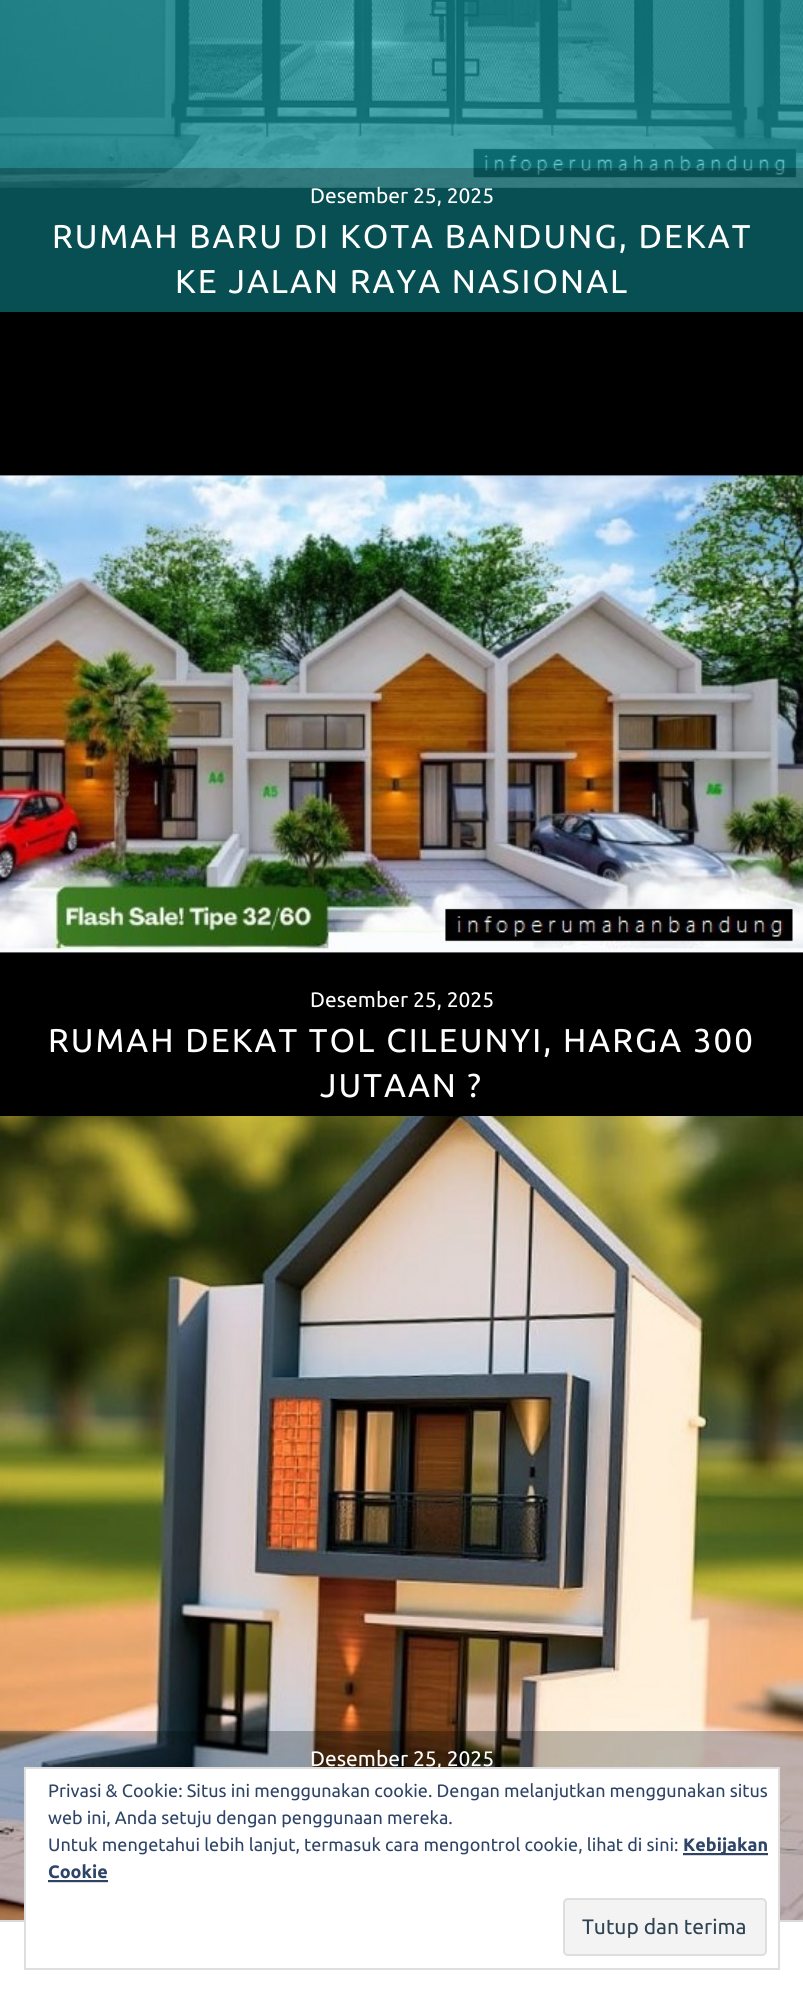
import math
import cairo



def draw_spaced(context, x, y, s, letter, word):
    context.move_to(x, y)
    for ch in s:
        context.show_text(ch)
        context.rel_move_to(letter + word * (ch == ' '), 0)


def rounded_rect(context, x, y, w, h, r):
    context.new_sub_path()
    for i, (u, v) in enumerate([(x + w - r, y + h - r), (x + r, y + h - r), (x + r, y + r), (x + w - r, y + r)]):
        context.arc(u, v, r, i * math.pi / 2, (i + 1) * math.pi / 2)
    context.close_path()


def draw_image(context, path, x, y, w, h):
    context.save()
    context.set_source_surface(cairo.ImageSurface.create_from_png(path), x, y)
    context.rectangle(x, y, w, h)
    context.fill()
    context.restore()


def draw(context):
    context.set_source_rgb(1, 1, 1)
    context.paint()
    context.set_source_rgb(10 / 255, 106 / 255, 110 / 255)
    context.rectangle(0, 187, 803, 125)
    context.fill()
    draw_image(context, "images/1.png", 0, 0, 803, 188)
    context.set_source_rgba(0, 0, 0, 0.25)
    context.rectangle(0, 168, 803, 144)
    context.fill()
    context.set_source_rgb(0, 0, 0)
    context.rectangle(0, 312, 803, 804)
    context.fill()
    draw_image(context, "images/2.png", 0, 475, 803, 478)
    draw_image(context, "images/3.png", 0, 1116, 803, 804)
    context.set_source_rgba(0, 0, 0, 0.25)
    context.rectangle(0, 1731, 803, 189)
    context.fill()
    context.set_source_rgb(217 / 255, 217 / 255, 217 / 255)
    context.rectangle(0, 1920, 803, 2)
    context.fill()
    context.set_source_rgb(1, 1, 1)
    context.rectangle(26, 1769, 752, 153)
    context.fill()
    context.select_font_face("Ubuntu")
    context.set_font_size(21)
    context.move_to(310, 203)
    context.show_text("Desember 25, 2025")
    context.set_font_size(33)
    draw_spaced(context, 52, 248, "RUMAH BARU DI KOTA BANDUNG, DEKAT", 2.05, 0)
    draw_spaced(context, 175, 293, "KE JALAN RAYA NASIONAL", 2.05, 0)
    context.set_font_size(21)
    context.move_to(310, 1007)
    context.show_text("Desember 25, 2025")
    context.set_font_size(33)
    draw_spaced(context, 48, 1052, "RUMAH DEKAT TOL CILEUNYI, HARGA 300", 2.05, 0)
    draw_spaced(context, 320, 1097, "JUTAAN ?", 2.05, 0)
    context.set_font_size(21)
    context.move_to(310, 1766)
    context.show_text("Desember 25, 2025")
    context.rectangle(25, 1768, 754, 201)
    context.set_source_rgb(222 / 255, 222 / 255, 222 / 255)
    context.stroke()
    context.set_font_size(18)
    context.set_source_rgb(46 / 255, 68 / 255, 103 / 255)
    context.move_to(48, 1797)
    context.show_text("Privasi & Cookie: Situs ini menggunakan cookie. Dengan melanjutkan menggunakan situs")
    context.move_to(48, 1824)
    context.show_text("web ini, Anda setuju dengan penggunaan mereka.")
    context.move_to(48, 1851)
    context.show_text("Untuk mengetahui lebih lanjut, termasuk cara mengontrol cookie, lihat di sini:")
    context.set_source_rgb(217 / 255, 217 / 255, 217 / 255)
    context.rectangle(683, 1855, 85, 1)
    context.fill()
    context.set_source_rgb(46 / 255, 68 / 255, 103 / 255)
    context.rectangle(683, 1853, 85, 2)
    context.fill()
    context.select_font_face("Ubuntu", cairo.FontSlant.NORMAL, cairo.FontWeight.BOLD)
    context.move_to(683, 1851)
    context.show_text("Kebijakan")
    context.move_to(48, 1878)
    context.show_text("Cookie")
    context.set_source_rgb(217 / 255, 217 / 255, 217 / 255)
    context.rectangle(48, 1882, 60, 1)
    context.fill()
    context.set_source_rgb(46 / 255, 68 / 255, 103 / 255)
    context.rectangle(48, 1880, 60, 2)
    context.fill()
    context.set_source_rgb(243 / 255, 243 / 255, 243 / 255)
    rounded_rect(context, 564, 1899, 202, 56, 4)
    context.fill_preserve()
    context.set_source_rgb(222 / 255, 222 / 255, 222 / 255)
    context.stroke()
    context.select_font_face("Ubuntu")
    context.set_font_size(21)
    context.set_source_rgb(46 / 255, 68 / 255, 83 / 255)
    context.move_to(582, 1934)
    context.show_text("Tutup dan terima")


surface = cairo.ImageSurface(cairo.Format.RGB24, 803, 1993)
context = cairo.Context(surface)
options = cairo.FontOptions()
options.set_hint_metrics(cairo.HintMetrics.OFF)
options.set_hint_style(cairo.HintStyle.NONE)
context.set_font_options(options)
context.set_miter_limit(4)
draw(context)
surface.write_to_png("out.png")
